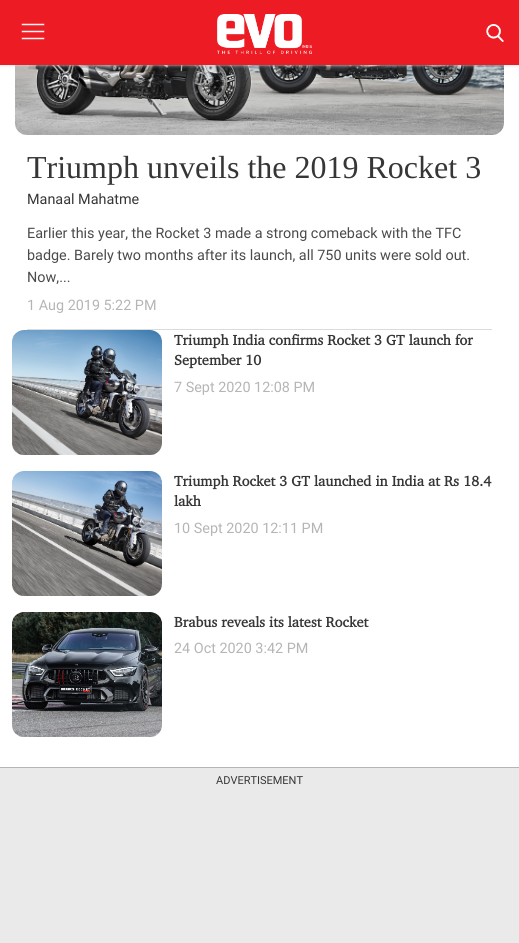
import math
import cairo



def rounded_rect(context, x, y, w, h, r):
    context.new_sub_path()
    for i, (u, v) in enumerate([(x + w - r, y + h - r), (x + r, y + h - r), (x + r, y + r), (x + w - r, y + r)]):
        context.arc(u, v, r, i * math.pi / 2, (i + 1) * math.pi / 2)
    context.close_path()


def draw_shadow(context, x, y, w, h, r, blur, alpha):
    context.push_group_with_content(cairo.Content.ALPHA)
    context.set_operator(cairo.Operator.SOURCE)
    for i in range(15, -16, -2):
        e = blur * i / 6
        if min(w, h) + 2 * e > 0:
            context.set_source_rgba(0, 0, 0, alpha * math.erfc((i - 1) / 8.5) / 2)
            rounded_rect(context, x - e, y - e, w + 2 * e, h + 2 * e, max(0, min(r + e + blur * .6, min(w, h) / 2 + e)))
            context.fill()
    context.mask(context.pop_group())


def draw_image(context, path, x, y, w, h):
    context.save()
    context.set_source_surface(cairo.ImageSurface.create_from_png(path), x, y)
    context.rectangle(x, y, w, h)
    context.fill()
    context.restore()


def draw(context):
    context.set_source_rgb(1, 1, 1)
    context.paint()
    draw_image(context, "images/3.png", 15, 65, 489, 70)
    context.set_source_rgb(219 / 255, 219 / 255, 219 / 255)
    draw_shadow(context, 0, 0, 519, 65, 0, 2, 1)
    context.set_source_rgb(237 / 255, 28 / 255, 36 / 255)
    context.rectangle(0, 0, 519, 65)
    context.fill()
    context.set_source_rgb(245 / 255, 245 / 255, 245 / 255)
    draw_shadow(context, 22, 24, 22, 1, 0, 0.5, 1)
    context.set_source_rgb(245 / 255, 245 / 255, 245 / 255)
    context.rectangle(22, 24, 22, 1)
    context.fill()
    context.set_source_rgb(245 / 255, 245 / 255, 245 / 255)
    draw_shadow(context, 22, 31, 22, 1, 0, 0.5, 1)
    context.set_source_rgb(245 / 255, 245 / 255, 245 / 255)
    context.rectangle(22, 31, 22, 1)
    context.fill()
    context.set_source_rgb(245 / 255, 245 / 255, 245 / 255)
    draw_shadow(context, 22, 38, 22, 1, 0, 0.5, 1)
    context.set_source_rgb(245 / 255, 245 / 255, 245 / 255)
    context.rectangle(22, 38, 22, 1)
    context.fill()
    draw_image(context, "images/1.png", 217, 14, 95, 40)
    draw_image(context, "images/2.png", 486, 24, 18, 18)
    context.set_source_rgb(219 / 255, 219 / 255, 219 / 255)
    context.rectangle(27, 329, 465, 1)
    context.fill()
    draw_image(context, "images/4.png", 12, 330, 150, 125)
    draw_image(context, "images/5.png", 12, 471, 150, 125)
    draw_image(context, "images/6.png", 12, 612, 150, 125)
    context.set_source_rgb(181 / 255, 181 / 255, 181 / 255)
    context.rectangle(0, 767, 519, 1)
    context.fill()
    context.set_source_rgb(234 / 255, 234 / 255, 234 / 255)
    context.rectangle(0, 768, 519, 175)
    context.fill()
    context.select_font_face("Liberation Serif")
    context.set_font_size(32)
    context.set_source_rgb(54 / 255, 54 / 255, 54 / 255)
    context.move_to(27, 178)
    context.show_text("Triumph unveils the 2019 Rocket 3")
    context.select_font_face("Roboto")
    context.set_font_size(14.4)
    context.move_to(27, 204)
    context.show_text("Manaal Mahatme")
    context.set_source_rgb(74 / 255, 74 / 255, 74 / 255)
    context.move_to(27, 238)
    context.show_text("Earlier this year, the Rocket 3 made a strong comeback with the TFC")
    context.move_to(27, 260)
    context.show_text("badge. Barely two months after its launch, all 750 units were sold out.")
    context.move_to(27, 282)
    context.show_text("Now,...")
    context.set_source_rgb(181 / 255, 181 / 255, 181 / 255)
    context.move_to(27, 310)
    context.show_text("1 Aug 2019 5:22 PM")
    context.select_font_face("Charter", cairo.FontSlant.NORMAL, cairo.FontWeight.BOLD)
    context.set_source_rgb(54 / 255, 54 / 255, 54 / 255)
    context.move_to(174, 345)
    context.show_text("Triumph India confirms Rocket 3 GT launch for")
    context.move_to(174, 365)
    context.show_text("September 10")
    context.select_font_face("Roboto")
    context.set_source_rgb(181 / 255, 181 / 255, 181 / 255)
    context.move_to(174, 392)
    context.show_text("7 Sept 2020 12:08 PM")
    context.select_font_face("Charter", cairo.FontSlant.NORMAL, cairo.FontWeight.BOLD)
    context.set_source_rgb(54 / 255, 54 / 255, 54 / 255)
    context.move_to(174, 486)
    context.show_text("Triumph Rocket 3 GT launched in India at Rs 18.4")
    context.move_to(174, 506)
    context.show_text("lakh")
    context.select_font_face("Roboto")
    context.set_source_rgb(181 / 255, 181 / 255, 181 / 255)
    context.move_to(174, 533)
    context.show_text("10 Sept 2020 12:11 PM")
    context.select_font_face("Charter", cairo.FontSlant.NORMAL, cairo.FontWeight.BOLD)
    context.set_source_rgb(54 / 255, 54 / 255, 54 / 255)
    context.move_to(174, 627)
    context.show_text("Brabus reveals its latest Rocket")
    context.select_font_face("Roboto")
    context.set_source_rgb(181 / 255, 181 / 255, 181 / 255)
    context.move_to(174, 653)
    context.show_text("24 Oct 2020 3:42 PM")
    context.set_font_size(11)
    context.set_source_rgb(54 / 255, 54 / 255, 54 / 255)
    context.move_to(216, 784)
    context.show_text("ADVERTISEMENT")


surface = cairo.ImageSurface(cairo.Format.RGB24, 519, 943)
context = cairo.Context(surface)
options = cairo.FontOptions()
options.set_hint_metrics(cairo.HintMetrics.OFF)
options.set_hint_style(cairo.HintStyle.NONE)
context.set_font_options(options)
context.set_miter_limit(4)
draw(context)
surface.write_to_png("out.png")
